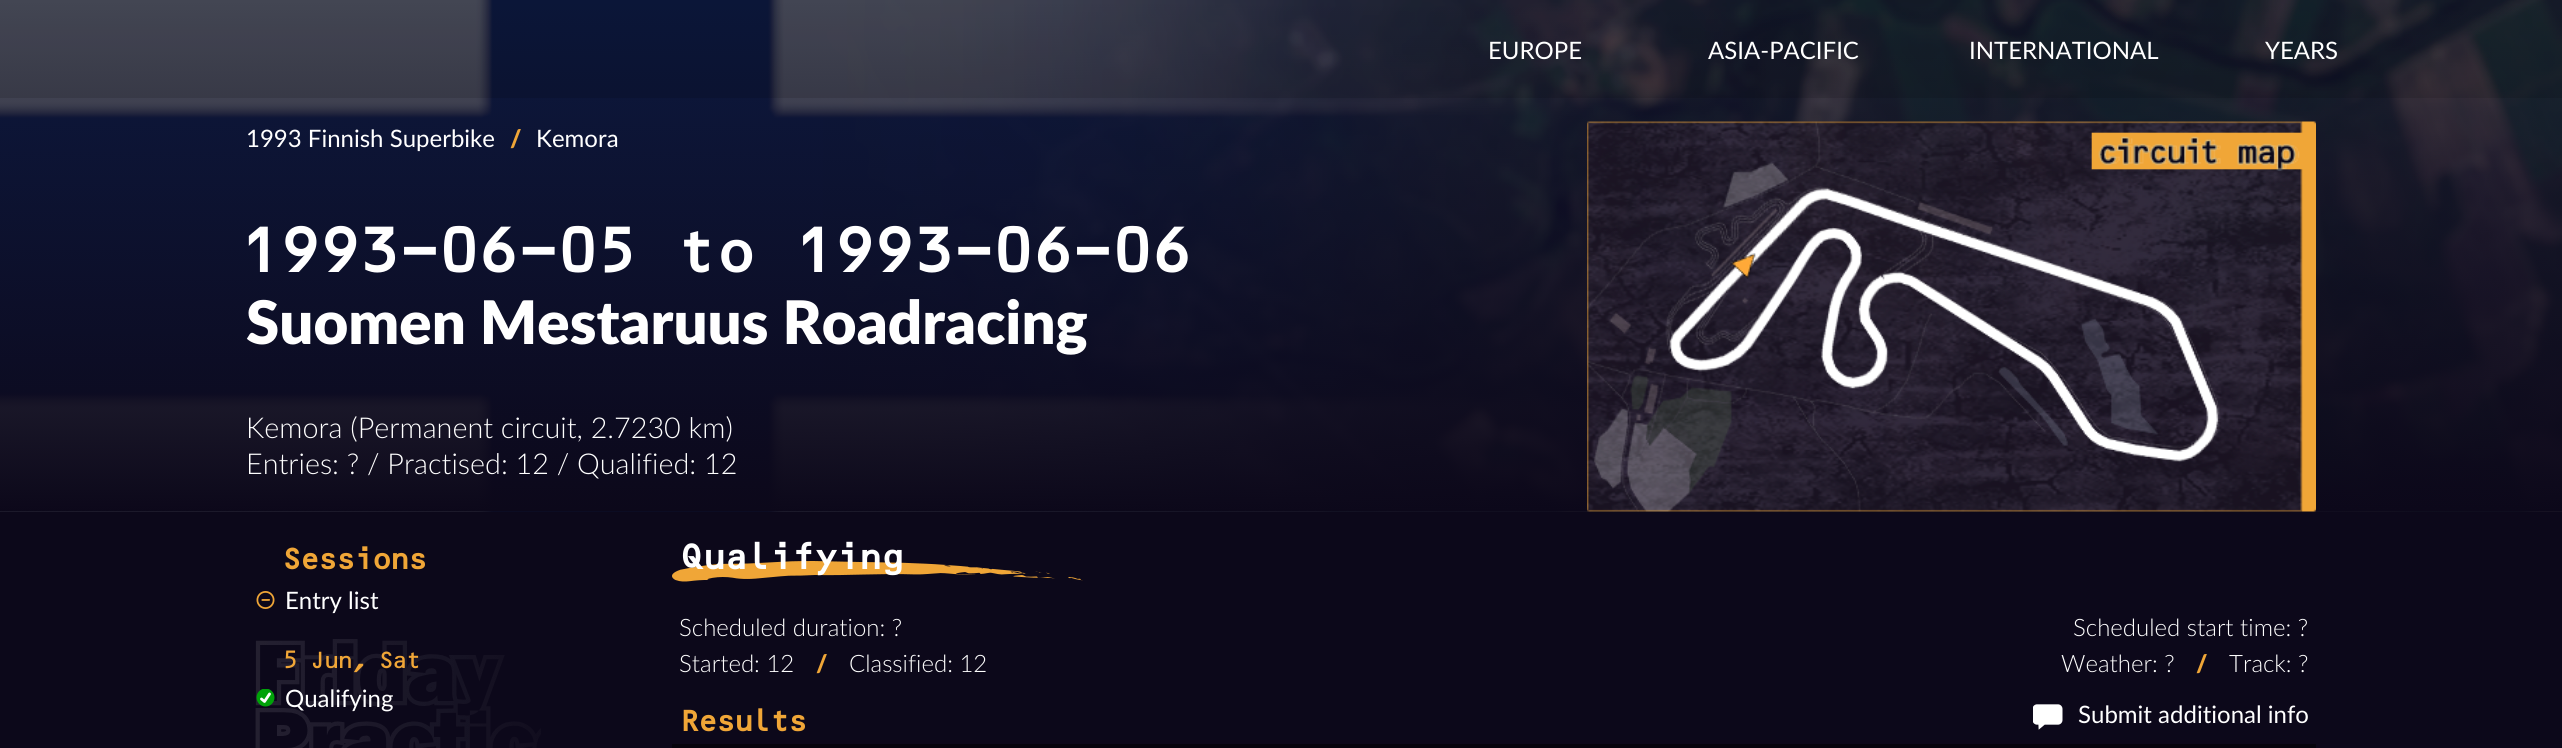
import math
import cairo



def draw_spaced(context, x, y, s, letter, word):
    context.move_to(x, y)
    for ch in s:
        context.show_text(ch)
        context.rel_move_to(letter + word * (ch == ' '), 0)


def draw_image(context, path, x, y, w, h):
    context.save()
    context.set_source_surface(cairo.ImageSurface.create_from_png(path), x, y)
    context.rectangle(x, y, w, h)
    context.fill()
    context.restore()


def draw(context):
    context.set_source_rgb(12 / 255, 8 / 255, 26 / 255)
    context.paint()
    draw_image(context, "images/1.png", 0, 0, 2562, 512)
    context.set_source_rgba(0, 0, 0, 0.12)
    context.rectangle(0, 0, 2562, 98)
    context.fill()
    draw_image(context, "images/2.png", 1587, 121, 729, 391)
    draw_image(context, "images/3.png", 255, 639, 286, 109)
    draw_image(context, "images/4.png", 256, 591, 19, 18)
    context.save()
    context.rectangle(254, 689, 24, 18)
    context.clip()
    context.set_source_rgb(0, 162 / 255, 9 / 255)
    context.arc(265.5, 697.5, 9, 0, 2 * math.pi)
    context.fill()
    context.restore()
    context.new_path()
    context.move_to(261.5, 699)
    context.line_to(264.5, 701.5)
    context.line_to(269.5, 694)
    context.set_source_rgb(1, 1, 1)
    context.set_line_width(2.8)
    context.set_line_cap(cairo.LineCap.ROUND)
    context.set_line_join(cairo.LineJoin.ROUND)
    context.stroke()
    draw_image(context, "images/5.png", 672, 561, 411, 21)
    draw_image(context, "images/6.png", 2033, 704, 30, 26)
    context.set_source_rgb(6 / 255, 4 / 255, 13 / 255)
    context.rectangle(672, 744, 1142, 4)
    context.fill()
    context.rectangle(1814, 744, 502, 4)
    context.fill()
    context.select_font_face("Lato")
    context.set_font_size(24)
    context.set_source_rgb(1, 1, 1)
    context.move_to(1488, 59)
    context.show_text("EUROPE")
    context.move_to(1708, 59)
    context.show_text("ASIA-PACIFIC")
    context.move_to(1969, 59)
    context.show_text("INTERNATIONAL")
    context.move_to(2265, 59)
    context.show_text("YEARS")
    context.move_to(246, 147)
    context.show_text("1993 Finnish Superbike")
    context.select_font_face("Lato Black")
    context.set_source_rgb(240 / 255, 166 / 255, 55 / 255)
    context.move_to(510, 147)
    context.show_text("/")
    context.select_font_face("Lato")
    context.set_source_rgb(1, 1, 1)
    context.move_to(536, 147)
    context.show_text("Kemora")
    context.select_font_face("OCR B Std", cairo.FontSlant.NORMAL, cairo.FontWeight.BOLD)
    context.set_font_size(60)
    draw_spaced(context, 239, 272, "1993-06-05 to 1993-06-06", -3.6, 0)
    context.select_font_face("Lato Black")
    context.move_to(246, 344)
    context.show_text("Suomen Mestaruus Roadracing")
    context.select_font_face("Lato Light")
    context.set_font_size(28.75)
    context.move_to(246, 438)
    context.show_text("Kemora (Permanent circuit, 2.7230 km)")
    context.move_to(246, 474)
    context.show_text("Entries: ? / Practised: 12 / Qualified: 12")
    context.select_font_face("OCR B Std", cairo.FontSlant.NORMAL, cairo.FontWeight.BOLD)
    context.set_font_size(30)
    context.set_source_rgb(240 / 255, 166 / 255, 55 / 255)
    draw_spaced(context, 281, 569, "Sessions", -3.6, 0)
    context.select_font_face("Lato")
    context.set_font_size(24)
    context.set_source_rgb(1, 1, 1)
    context.move_to(285, 609)
    context.show_text("Entry list")
    context.select_font_face("OCR B Std")
    context.set_source_rgb(240 / 255, 166 / 255, 55 / 255)
    draw_spaced(context, 282, 668, "5 Jun, Sat", -3.6, 0)
    context.select_font_face("Lato")
    context.set_source_rgb(1, 1, 1)
    context.move_to(285, 707)
    context.show_text("Qualifying")
    context.select_font_face("OCR B Std", cairo.FontSlant.NORMAL, cairo.FontWeight.BOLD)
    context.set_font_size(36)
    draw_spaced(context, 679, 569, "Qualifying", -3.6, 0)
    context.select_font_face("Lato Light")
    context.set_font_size(24)
    context.move_to(679, 636)
    context.show_text("Scheduled duration: ?")
    context.move_to(679, 672)
    context.show_text("Started: 12")
    context.select_font_face("Lato Black")
    context.set_source_rgb(240 / 255, 166 / 255, 55 / 255)
    context.move_to(816, 672)
    context.show_text("/")
    context.select_font_face("Lato Light")
    context.set_source_rgb(1, 1, 1)
    context.move_to(849, 672)
    context.show_text("Classified: 12")
    context.move_to(2073, 636)
    context.show_text("Scheduled start time: ?")
    context.move_to(2061, 672)
    context.show_text("Weather: ?")
    context.select_font_face("Lato Black")
    context.set_source_rgb(240 / 255, 166 / 255, 55 / 255)
    context.move_to(2196, 672)
    context.show_text("/")
    context.select_font_face("Lato Light")
    context.set_source_rgb(1, 1, 1)
    context.move_to(2229, 672)
    context.show_text("Track: ?")
    context.select_font_face("OCR B Std", cairo.FontSlant.NORMAL, cairo.FontWeight.BOLD)
    context.set_font_size(30)
    context.set_source_rgb(240 / 255, 166 / 255, 55 / 255)
    draw_spaced(context, 679, 731, "Results", -3.6, 0)
    context.select_font_face("Lato")
    context.set_font_size(24)
    context.set_source_rgb(1, 1, 1)
    context.move_to(2078, 723)
    context.show_text("Submit additional info")


surface = cairo.ImageSurface(cairo.Format.RGB24, 2562, 748)
context = cairo.Context(surface)
options = cairo.FontOptions()
options.set_hint_metrics(cairo.HintMetrics.OFF)
options.set_hint_style(cairo.HintStyle.NONE)
context.set_font_options(options)
context.set_miter_limit(4)
draw(context)
surface.write_to_png("out.png")
